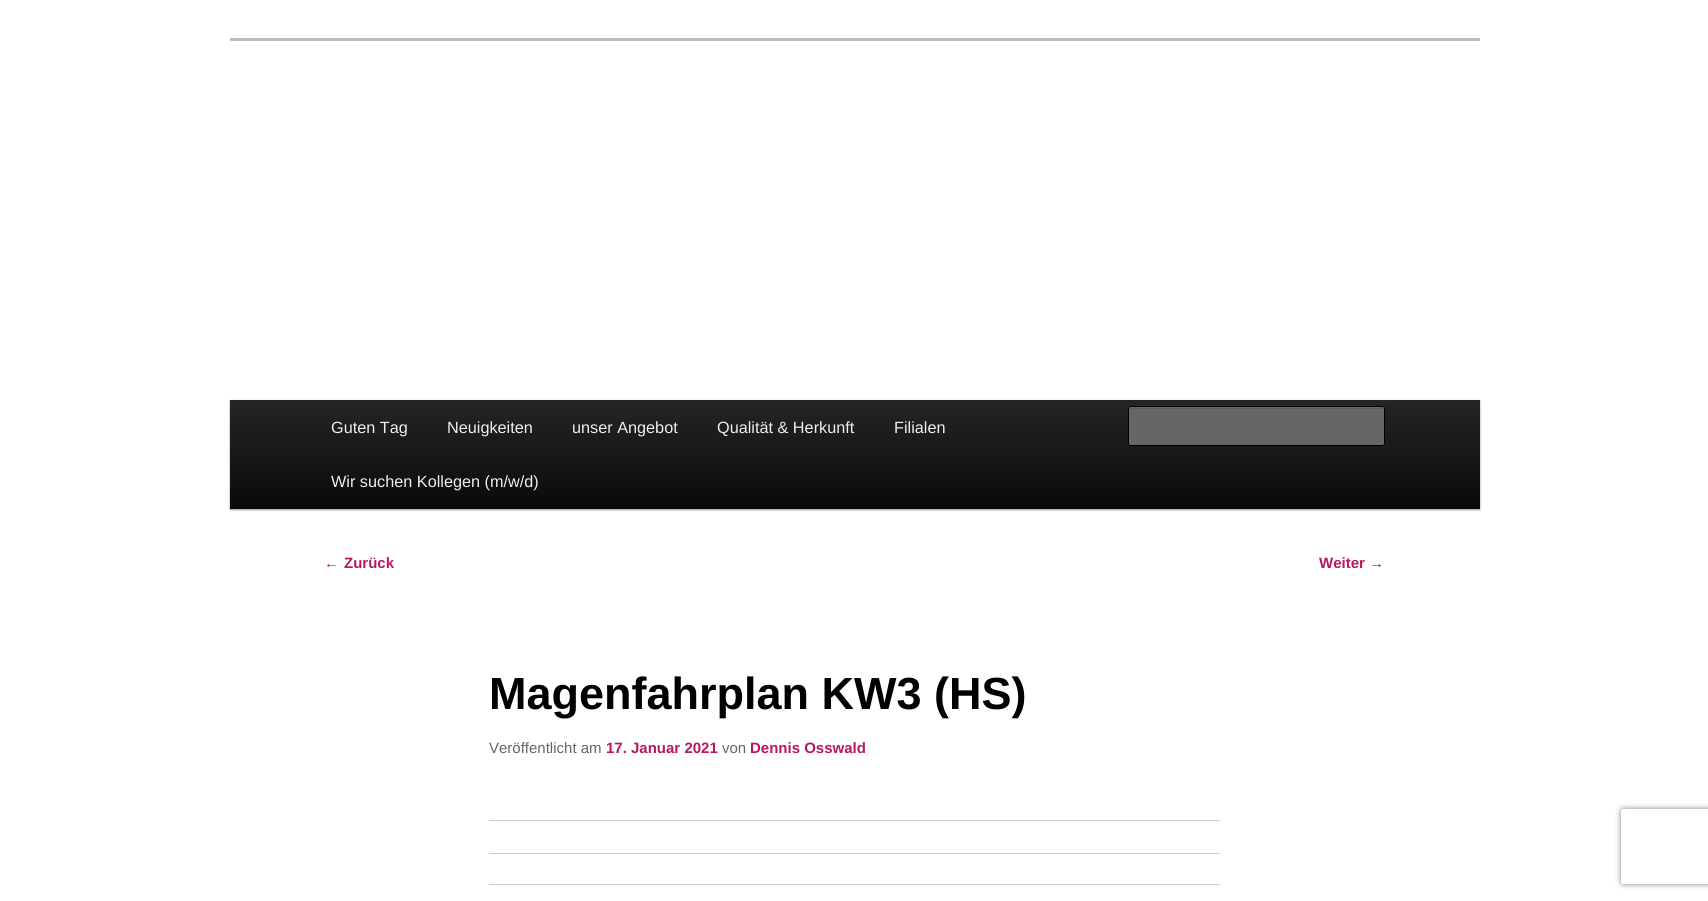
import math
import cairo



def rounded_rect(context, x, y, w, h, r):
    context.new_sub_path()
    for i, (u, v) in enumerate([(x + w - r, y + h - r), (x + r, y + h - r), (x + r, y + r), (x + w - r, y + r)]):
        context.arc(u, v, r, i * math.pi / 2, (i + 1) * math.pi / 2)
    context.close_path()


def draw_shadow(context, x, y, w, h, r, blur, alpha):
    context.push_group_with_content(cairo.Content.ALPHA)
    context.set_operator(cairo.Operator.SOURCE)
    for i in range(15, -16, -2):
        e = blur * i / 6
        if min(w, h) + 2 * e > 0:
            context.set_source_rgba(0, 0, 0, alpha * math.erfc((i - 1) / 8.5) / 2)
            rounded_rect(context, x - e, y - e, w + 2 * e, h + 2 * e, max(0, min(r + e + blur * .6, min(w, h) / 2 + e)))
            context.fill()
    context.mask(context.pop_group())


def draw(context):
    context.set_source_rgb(1, 1, 1)
    context.paint()
    context.set_source_rgb(187 / 255, 187 / 255, 187 / 255)
    context.rectangle(230, 38, 1250, 3)
    context.fill()
    context.set_source_rgb(0, 0, 0)
    draw_shadow(context, 230, 401, 1250, 109, 0, 1, 0.4)
    gradient = cairo.LinearGradient(855, 400, 855, 509)
    gradient.add_color_stop_rgba(0, 37 / 255, 37 / 255, 37 / 255, 1)
    gradient.add_color_stop_rgba(1, 10 / 255, 10 / 255, 10 / 255, 1)
    context.set_source(gradient)
    context.rectangle(230, 400, 1250, 109)
    context.fill()
    context.set_source_rgb(102 / 255, 102 / 255, 102 / 255)
    rounded_rect(context, 1128, 406, 257, 40, 2.5)
    context.fill()
    context.set_source_rgb(92 / 255, 92 / 255, 92 / 255)
    context.new_path()
    context.move_to(1130, 409)
    context.line_to(1382, 409)
    context.curve_to(1383, 409, 1384, 409, 1384, 410)
    context.line_to(1384, 408)
    context.line_to(1130, 408)
    context.curve_to(1129, 408, 1129, 409, 1129, 410)
    context.curve_to(1129, 409, 1129, 409, 1130, 409)
    context.close_path()
    context.fill()
    rounded_rect(context, 1128.5, 406.5, 256, 39, 2)
    context.set_source_rgb(0, 0, 0)
    context.set_line_width(1)
    context.stroke()
    context.set_source_rgb(204 / 255, 204 / 255, 204 / 255)
    context.rectangle(489, 820, 731, 1)
    context.fill()
    context.rectangle(489, 853, 731, 1)
    context.fill()
    context.rectangle(489, 884, 731, 1)
    context.fill()
    context.save()
    context.set_fill_rule(cairo.FillRule.EVEN_ODD)
    context.new_path()
    context.move_to(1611, 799)
    context.line_to(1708, 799)
    context.line_to(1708, 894)
    context.line_to(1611, 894)
    context.close_path()
    context.move_to(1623.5, 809)
    context.line_to(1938.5, 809)
    context.curve_to(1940, 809, 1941, 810, 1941, 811.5)
    context.line_to(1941, 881.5)
    context.curve_to(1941, 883, 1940, 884, 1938.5, 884)
    context.line_to(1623.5, 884)
    context.curve_to(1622, 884, 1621, 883, 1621, 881.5)
    context.line_to(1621, 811.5)
    context.curve_to(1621, 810, 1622, 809, 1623.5, 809)
    context.close_path()
    context.clip()
    context.set_source_rgb(128 / 255, 128 / 255, 128 / 255)
    draw_shadow(context, 1621, 809, 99, 75, 2.5, 3, 1)
    context.restore()
    context.select_font_face("Liberation Sans")
    context.set_font_size(16.25)
    context.set_source_rgb(238 / 255, 238 / 255, 238 / 255)
    context.move_to(331, 433)
    context.show_text("Guten Tag")
    context.move_to(447, 433)
    context.show_text("Neuigkeiten")
    context.move_to(572, 433)
    context.show_text("unser Angebot")
    context.move_to(717, 433)
    context.show_text("Qualität & Herkunft")
    context.move_to(894, 433)
    context.show_text("Filialen")
    context.move_to(331, 487)
    context.show_text("Wir suchen Kollegen (m/w/d)")
    context.set_font_size(15)
    context.set_source_rgb(187 / 255, 22 / 255, 97 / 255)
    context.move_to(324, 568)
    context.show_text("←")
    context.select_font_face("Liberation Sans", cairo.FontSlant.NORMAL, cairo.FontWeight.BOLD)
    context.move_to(344, 568)
    context.show_text("Zurück")
    context.move_to(1319, 568)
    context.show_text("Weiter")
    context.select_font_face("Liberation Sans")
    context.move_to(1369, 568)
    context.show_text("→")
    context.select_font_face("Liberation Sans", cairo.FontSlant.NORMAL, cairo.FontWeight.BOLD)
    context.set_font_size(45)
    context.set_source_rgb(0, 0, 0)
    context.move_to(489, 709)
    context.show_text("Magenfahrplan KW3 (HS)")
    context.select_font_face("Liberation Sans")
    context.set_font_size(15)
    context.set_source_rgb(102 / 255, 102 / 255, 102 / 255)
    context.move_to(489, 753)
    context.show_text("Veröffentlicht am")
    context.select_font_face("Liberation Sans", cairo.FontSlant.NORMAL, cairo.FontWeight.BOLD)
    context.set_source_rgb(187 / 255, 22 / 255, 97 / 255)
    context.move_to(606, 753)
    context.show_text("17. Januar 2021")
    context.select_font_face("Liberation Sans")
    context.set_source_rgb(102 / 255, 102 / 255, 102 / 255)
    context.move_to(722, 753)
    context.show_text("von")
    context.select_font_face("Liberation Sans", cairo.FontSlant.NORMAL, cairo.FontWeight.BOLD)
    context.set_source_rgb(187 / 255, 22 / 255, 97 / 255)
    context.move_to(750, 753)
    context.show_text("Dennis Osswald")


surface = cairo.ImageSurface(cairo.Format.RGB24, 1708, 901)
context = cairo.Context(surface)
options = cairo.FontOptions()
options.set_hint_metrics(cairo.HintMetrics.OFF)
options.set_hint_style(cairo.HintStyle.NONE)
context.set_font_options(options)
context.set_miter_limit(4)
draw(context)
surface.write_to_png("out.png")
